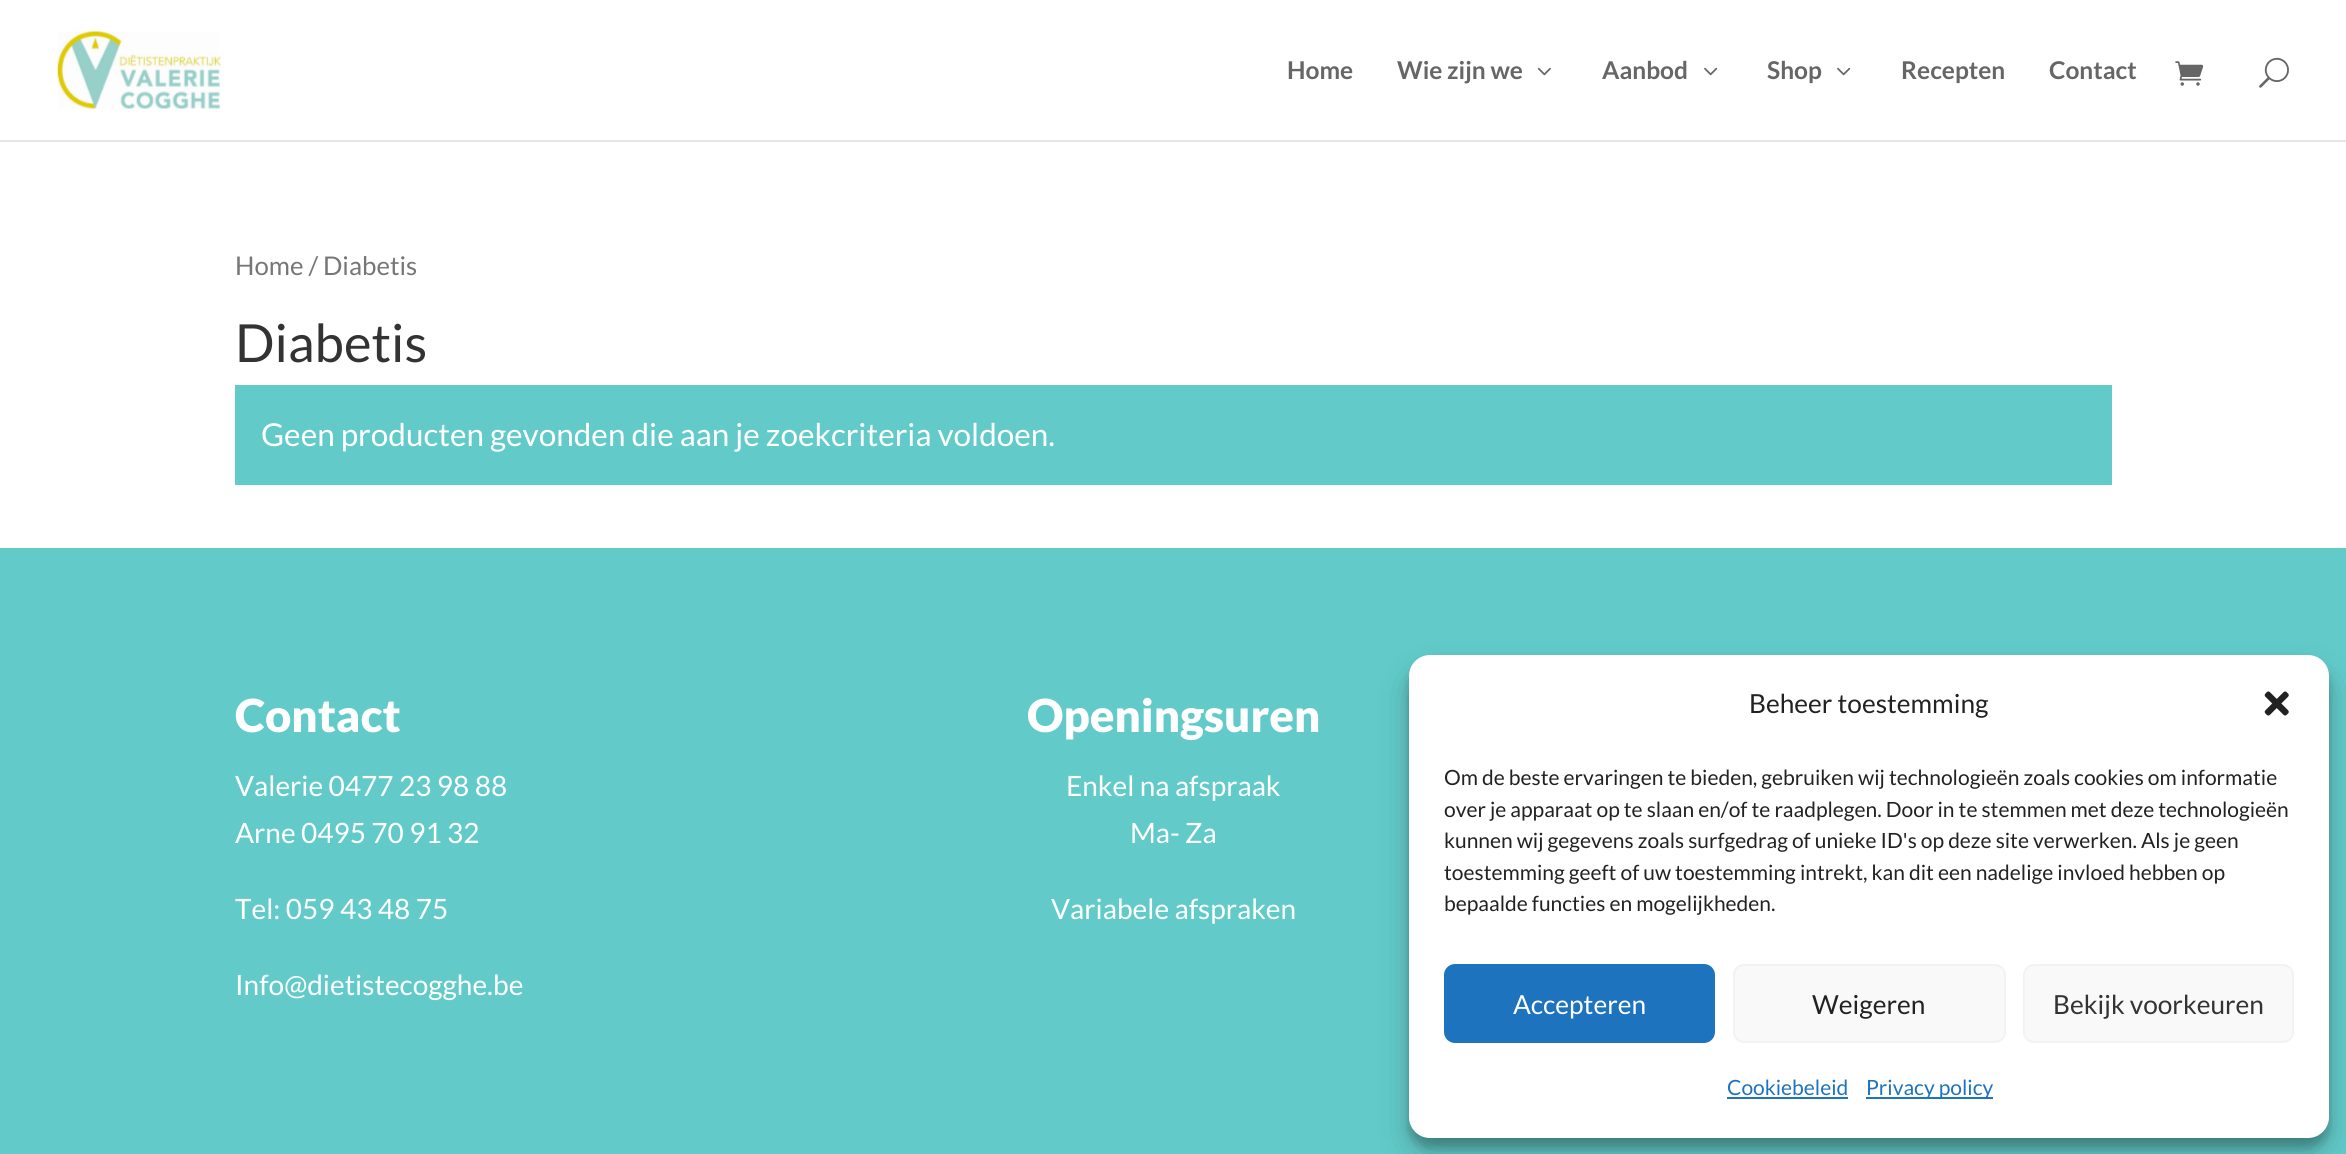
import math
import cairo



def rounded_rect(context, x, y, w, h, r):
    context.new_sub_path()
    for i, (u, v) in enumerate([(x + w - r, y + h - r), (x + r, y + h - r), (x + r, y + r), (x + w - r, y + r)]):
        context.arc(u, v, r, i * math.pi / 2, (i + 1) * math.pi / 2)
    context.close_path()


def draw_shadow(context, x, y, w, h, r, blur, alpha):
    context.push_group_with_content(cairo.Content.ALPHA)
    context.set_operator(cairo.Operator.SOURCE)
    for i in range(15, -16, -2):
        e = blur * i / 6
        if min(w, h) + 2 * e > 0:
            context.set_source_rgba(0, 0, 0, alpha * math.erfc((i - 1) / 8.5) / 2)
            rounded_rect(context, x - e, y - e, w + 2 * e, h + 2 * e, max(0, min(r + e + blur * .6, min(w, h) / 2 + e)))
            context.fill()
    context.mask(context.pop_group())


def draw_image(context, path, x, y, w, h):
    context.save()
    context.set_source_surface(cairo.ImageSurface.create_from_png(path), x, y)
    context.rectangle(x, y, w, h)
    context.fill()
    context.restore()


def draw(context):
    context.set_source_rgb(1, 1, 1)
    context.paint()
    context.set_source_rgb(230 / 255, 230 / 255, 230 / 255)
    context.new_path()
    context.move_to(0, 140)
    context.line_to(0, 142)
    context.line_to(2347, 142)
    context.line_to(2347, 2)
    context.line_to(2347, 140)
    context.close_path()
    context.fill()
    draw_image(context, "images/1.png", 57, 31, 164, 78)
    draw_image(context, "images/2.png", 1537, 67, 14, 9)
    draw_image(context, "images/3.png", 1704, 67, 14, 9)
    draw_image(context, "images/3.png", 1837, 67, 14, 9)
    draw_image(context, "images/4.png", 2175, 61, 29, 25)
    draw_image(context, "images/5.png", 2259, 57, 30, 31)
    context.set_source_rgb(98 / 255, 203 / 255, 201 / 255)
    context.rectangle(235, 385, 1877, 100)
    context.fill()
    context.rectangle(0, 548, 2346, 606)
    context.fill()
    context.set_source_rgb(0, 0, 0)
    draw_shadow(context, 1409, 665, 920, 483, 21, 5, 0.23)
    draw_shadow(context, 1409, 672, 920, 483, 21, 17.5, 0.19)
    context.set_source_rgb(1, 1, 1)
    rounded_rect(context, 1409, 655, 920, 483, 21)
    context.fill()
    draw_image(context, "images/6.png", 2264, 691, 25, 25)
    context.set_source_rgb(30 / 255, 115 / 255, 190 / 255)
    rounded_rect(context, 1445, 965, 269, 77, 10)
    context.fill_preserve()
    context.stroke()
    context.set_source_rgb(249 / 255, 249 / 255, 249 / 255)
    rounded_rect(context, 1734, 965, 271, 77, 10)
    context.fill_preserve()
    context.set_source_rgb(242 / 255, 242 / 255, 242 / 255)
    context.stroke()
    context.set_source_rgb(249 / 255, 249 / 255, 249 / 255)
    rounded_rect(context, 2024, 965, 269, 77, 10)
    context.fill_preserve()
    context.set_source_rgb(242 / 255, 242 / 255, 242 / 255)
    context.stroke()
    context.set_source_rgb(30 / 255, 115 / 255, 190 / 255)
    context.rectangle(1727, 1097, 121, 2)
    context.fill()
    context.rectangle(1866, 1097, 127, 2)
    context.fill()
    context.select_font_face("Lato", cairo.FontSlant.NORMAL, cairo.FontWeight.BOLD)
    context.set_font_size(24.5)
    context.set_source_rgb(102 / 255, 102 / 255, 102 / 255)
    context.move_to(1287, 79)
    context.show_text("Home")
    context.move_to(1397, 79)
    context.show_text("Wie zijn we")
    context.move_to(1602, 79)
    context.show_text("Aanbod")
    context.move_to(1767, 79)
    context.show_text("Shop")
    context.move_to(1901, 79)
    context.show_text("Recepten")
    context.move_to(2049, 79)
    context.show_text("Contact")
    context.select_font_face("Lato")
    context.set_font_size(25.75)
    context.set_source_rgb(118 / 255, 118 / 255, 118 / 255)
    context.move_to(235, 275)
    context.show_text("Home / Diabetis")
    context.set_font_size(52.5)
    context.set_source_rgb(51 / 255, 51 / 255, 51 / 255)
    context.move_to(235, 362)
    context.show_text("Diabetis")
    context.set_font_size(31.5)
    context.set_source_rgb(1, 1, 1)
    context.move_to(261, 446)
    context.show_text("Geen producten gevonden die aan je zoekcriteria voldoen.")
    context.select_font_face("Lato Black")
    context.set_font_size(45.5)
    context.move_to(235, 732)
    context.show_text("Contact")
    context.select_font_face("Lato")
    context.set_font_size(28)
    context.move_to(235, 796)
    context.show_text("Valerie 0477 23 98 88")
    context.move_to(235, 843)
    context.show_text("Arne 0495 70 91 32")
    context.move_to(235, 919)
    context.show_text("Tel: 059 43 48 75")
    context.move_to(235, 995)
    context.show_text("Info@dietistecogghe.be")
    context.select_font_face("Lato Black")
    context.set_font_size(45.5)
    context.move_to(1027, 732)
    context.show_text("Openingsuren")
    context.select_font_face("Lato")
    context.set_font_size(28)
    context.move_to(1066, 796)
    context.show_text("Enkel na afspraak")
    context.move_to(1130, 843)
    context.show_text("Ma- Za")
    context.move_to(1051, 919)
    context.show_text("Variabele afspraken")
    context.set_font_size(26.25)
    context.set_source_rgb(34 / 255, 34 / 255, 34 / 255)
    context.move_to(1749, 713)
    context.show_text("Beheer toestemming")
    context.set_font_size(21)
    context.move_to(1444, 785)
    context.show_text("Om de beste ervaringen te bieden, gebruiken wij technologieën zoals cookies om informatie")
    context.move_to(1444, 817)
    context.show_text("over je apparaat op te slaan en/of te raadplegen. Door in te stemmen met deze technologieën")
    context.move_to(1444, 848)
    context.show_text("kunnen wij gegevens zoals surfgedrag of unieke ID's op deze site verwerken. Als je geen")
    context.move_to(1444, 880)
    context.show_text("toestemming geeft of uw toestemming intrekt, kan dit een nadelige invloed hebben op")
    context.move_to(1444, 911)
    context.show_text("bepaalde functies en mogelijkheden.")
    context.set_font_size(26.25)
    context.set_source_rgb(1, 1, 1)
    context.move_to(1513, 1014)
    context.show_text("Accepteren")
    context.set_source_rgb(34 / 255, 34 / 255, 34 / 255)
    context.move_to(1812, 1014)
    context.show_text("Weigeren")
    context.set_source_rgb(51 / 255, 51 / 255, 51 / 255)
    context.move_to(2053, 1014)
    context.show_text("Bekijk voorkeuren")
    context.set_font_size(21)
    context.set_source_rgb(30 / 255, 115 / 255, 190 / 255)
    context.move_to(1727, 1095)
    context.show_text("Cookiebeleid")
    context.move_to(1866, 1095)
    context.show_text("Privacy policy")


surface = cairo.ImageSurface(cairo.Format.RGB24, 2346, 1154)
context = cairo.Context(surface)
options = cairo.FontOptions()
options.set_hint_metrics(cairo.HintMetrics.OFF)
options.set_hint_style(cairo.HintStyle.NONE)
context.set_font_options(options)
context.set_miter_limit(4)
draw(context)
surface.write_to_png("out.png")
